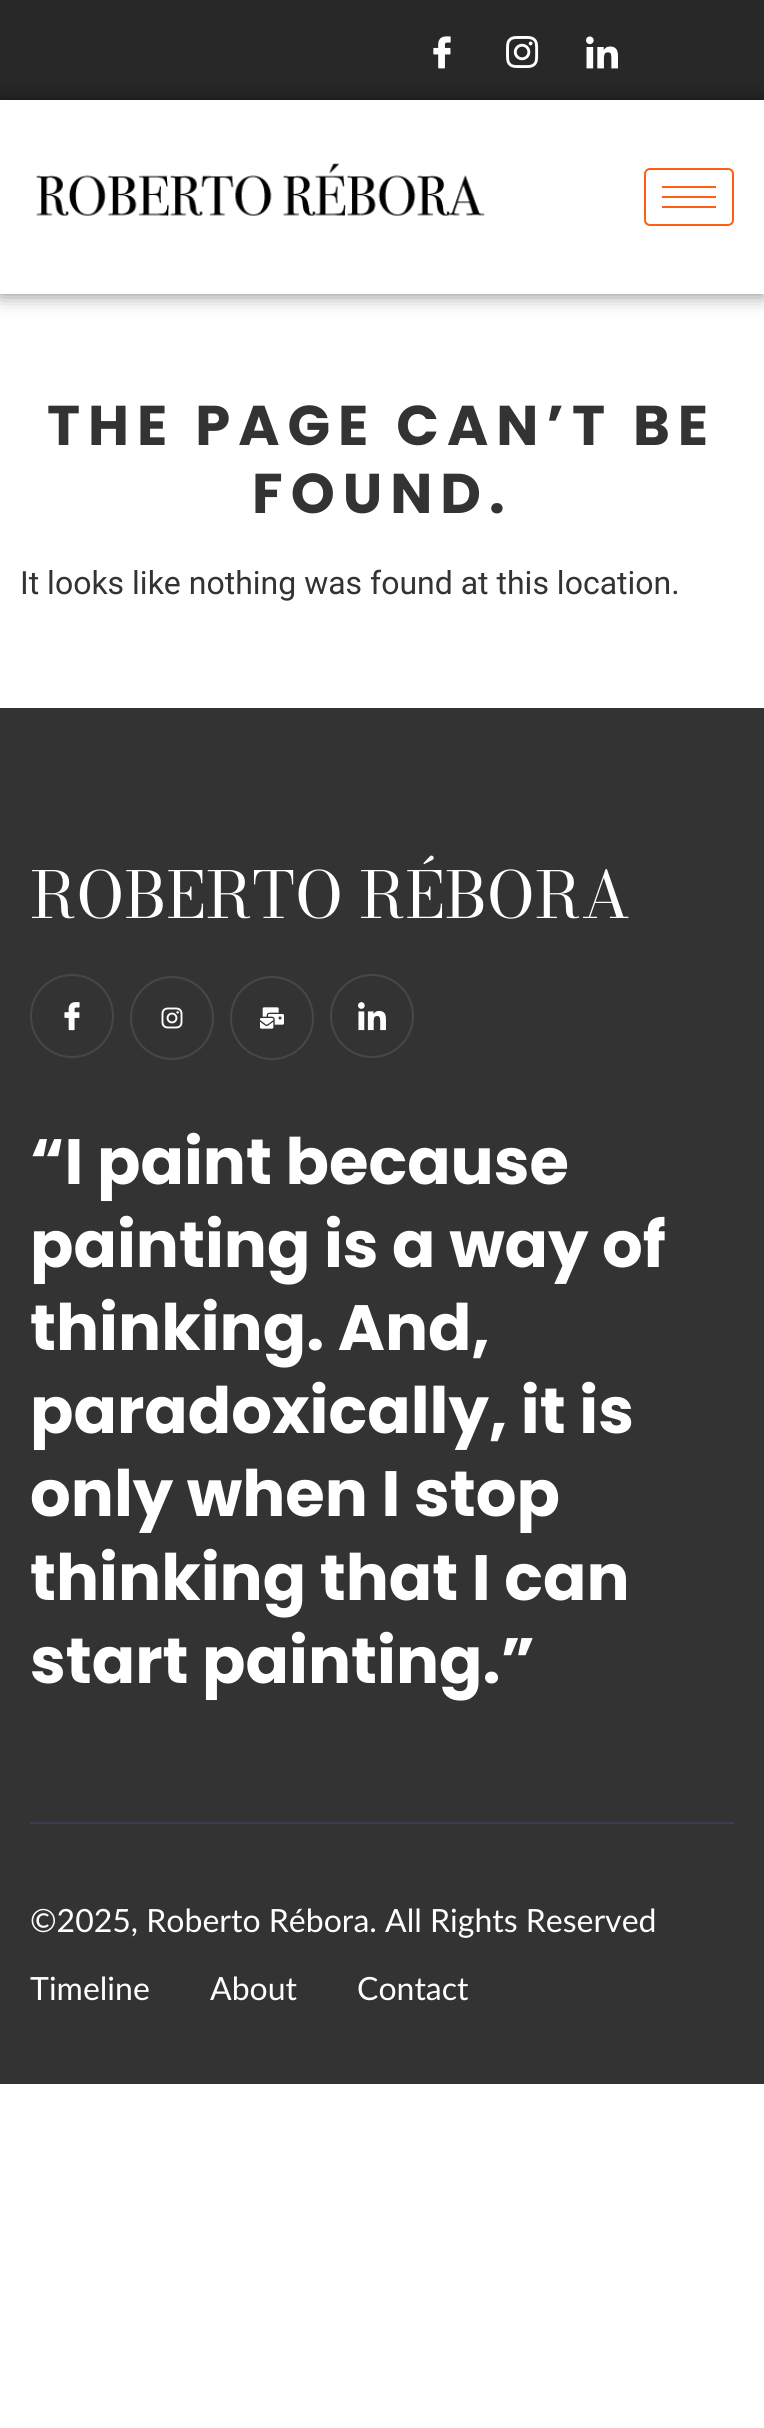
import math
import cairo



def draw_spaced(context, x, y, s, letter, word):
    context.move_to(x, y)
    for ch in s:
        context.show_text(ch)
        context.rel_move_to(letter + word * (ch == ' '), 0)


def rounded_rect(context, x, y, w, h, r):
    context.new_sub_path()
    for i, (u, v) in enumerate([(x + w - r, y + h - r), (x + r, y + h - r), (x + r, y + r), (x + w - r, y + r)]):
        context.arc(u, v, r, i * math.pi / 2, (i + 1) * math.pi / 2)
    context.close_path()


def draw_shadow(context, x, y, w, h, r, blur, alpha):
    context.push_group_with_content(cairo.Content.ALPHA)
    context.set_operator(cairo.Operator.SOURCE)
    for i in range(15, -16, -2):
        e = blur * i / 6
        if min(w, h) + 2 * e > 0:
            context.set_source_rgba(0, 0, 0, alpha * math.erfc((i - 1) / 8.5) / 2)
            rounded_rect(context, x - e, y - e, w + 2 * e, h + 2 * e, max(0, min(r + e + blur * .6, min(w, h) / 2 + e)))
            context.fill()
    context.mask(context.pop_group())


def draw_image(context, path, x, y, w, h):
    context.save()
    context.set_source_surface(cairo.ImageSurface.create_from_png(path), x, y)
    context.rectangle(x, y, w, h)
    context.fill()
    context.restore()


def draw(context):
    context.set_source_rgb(1, 1, 1)
    context.paint()
    context.set_source_rgb(40 / 255, 40 / 255, 40 / 255)
    context.rectangle(0, 0, 764, 100)
    context.fill()
    draw_image(context, "images/1.png", 433, 36, 18, 33)
    draw_image(context, "images/2.png", 506, 36, 33, 32)
    draw_image(context, "images/3.png", 586, 36, 32, 33)
    context.save()
    context.set_fill_rule(cairo.FillRule.EVEN_ODD)
    context.new_path()
    context.move_to(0, 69)
    context.line_to(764, 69)
    context.line_to(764, 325)
    context.line_to(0, 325)
    context.close_path()
    context.move_to(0, 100)
    context.line_to(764, 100)
    context.line_to(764, 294)
    context.line_to(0, 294)
    context.close_path()
    context.clip()
    context.set_source_rgb(0, 0, 0)
    draw_shadow(context, 0, 100, 764, 194, 0, 10, 0.5)
    context.restore()
    draw_image(context, "images/4.png", 36, 163, 449, 53)
    rounded_rect(context, 645, 169, 88, 56, 5)
    context.set_source_rgb(1, 94 / 255, 19 / 255)
    context.stroke()
    context.rectangle(662, 186, 54, 2)
    context.fill()
    context.rectangle(662, 196, 54, 2)
    context.fill()
    context.rectangle(662, 206, 54, 2)
    context.fill()
    context.set_source_rgb(51 / 255, 51 / 255, 51 / 255)
    context.rectangle(0, 708, 764, 1376)
    context.fill()
    context.arc(72, 1016, 41, 0, 2 * math.pi)
    context.set_source_rgb(71 / 255, 71 / 255, 71 / 255)
    context.stroke()
    draw_image(context, "images/5.png", 64, 1002, 16, 29)
    context.arc(172, 1018, 41, 0, 2 * math.pi)
    context.stroke()
    draw_image(context, "images/6.png", 161, 1007, 22, 22)
    context.arc(272, 1018, 41, 0, 2 * math.pi)
    context.stroke()
    draw_image(context, "images/7.png", 260, 1007, 24, 22)
    context.arc(372, 1016, 41, 0, 2 * math.pi)
    context.stroke()
    draw_image(context, "images/8.png", 358, 1002, 28, 29)
    context.set_source_rgb(62 / 255, 62 / 255, 83 / 255)
    context.rectangle(30, 1822, 704, 2)
    context.fill()
    context.select_font_face("Poppins", cairo.FontSlant.NORMAL, cairo.FontWeight.BOLD)
    context.set_font_size(56)
    context.set_source_rgb(51 / 255, 51 / 255, 51 / 255)
    draw_spaced(context, 47, 445, "THE PAGE CAN’T BE", 8, 0)
    draw_spaced(context, 252, 513, "FOUND.", 8, 0)
    context.select_font_face("Roboto")
    context.set_font_size(32)
    context.move_to(20, 594)
    context.show_text("It looks like nothing was found at this location.")
    context.select_font_face("Bodoni Moda")
    context.set_font_size(64)
    context.set_source_rgb(1, 1, 1)
    context.move_to(30, 918)
    context.show_text("ROBERTO RÉBORA")
    context.select_font_face("Poppins", cairo.FontSlant.NORMAL, cairo.FontWeight.BOLD)
    context.move_to(30, 1184)
    context.show_text("“I paint because")
    context.move_to(30, 1267)
    context.show_text("painting is a way of")
    context.move_to(30, 1350)
    context.show_text("thinking. And,")
    context.move_to(30, 1433)
    context.show_text("paradoxically, it is")
    context.move_to(30, 1516)
    context.show_text("only when I stop")
    context.move_to(30, 1600)
    context.show_text("thinking that I can")
    context.move_to(30, 1683)
    context.show_text("start painting.”")
    context.select_font_face("Lato")
    context.set_font_size(32)
    context.move_to(30, 1932)
    context.show_text("©2025, Roberto Rébora. All Rights Reserved")
    context.move_to(30, 2000)
    context.show_text("Timeline")
    context.move_to(210, 2000)
    context.show_text("About")
    context.move_to(357, 2000)
    context.show_text("Contact")


surface = cairo.ImageSurface(cairo.Format.RGB24, 764, 2428)
context = cairo.Context(surface)
options = cairo.FontOptions()
options.set_hint_metrics(cairo.HintMetrics.OFF)
options.set_hint_style(cairo.HintStyle.NONE)
context.set_font_options(options)
context.set_miter_limit(4)
draw(context)
surface.write_to_png("out.png")
